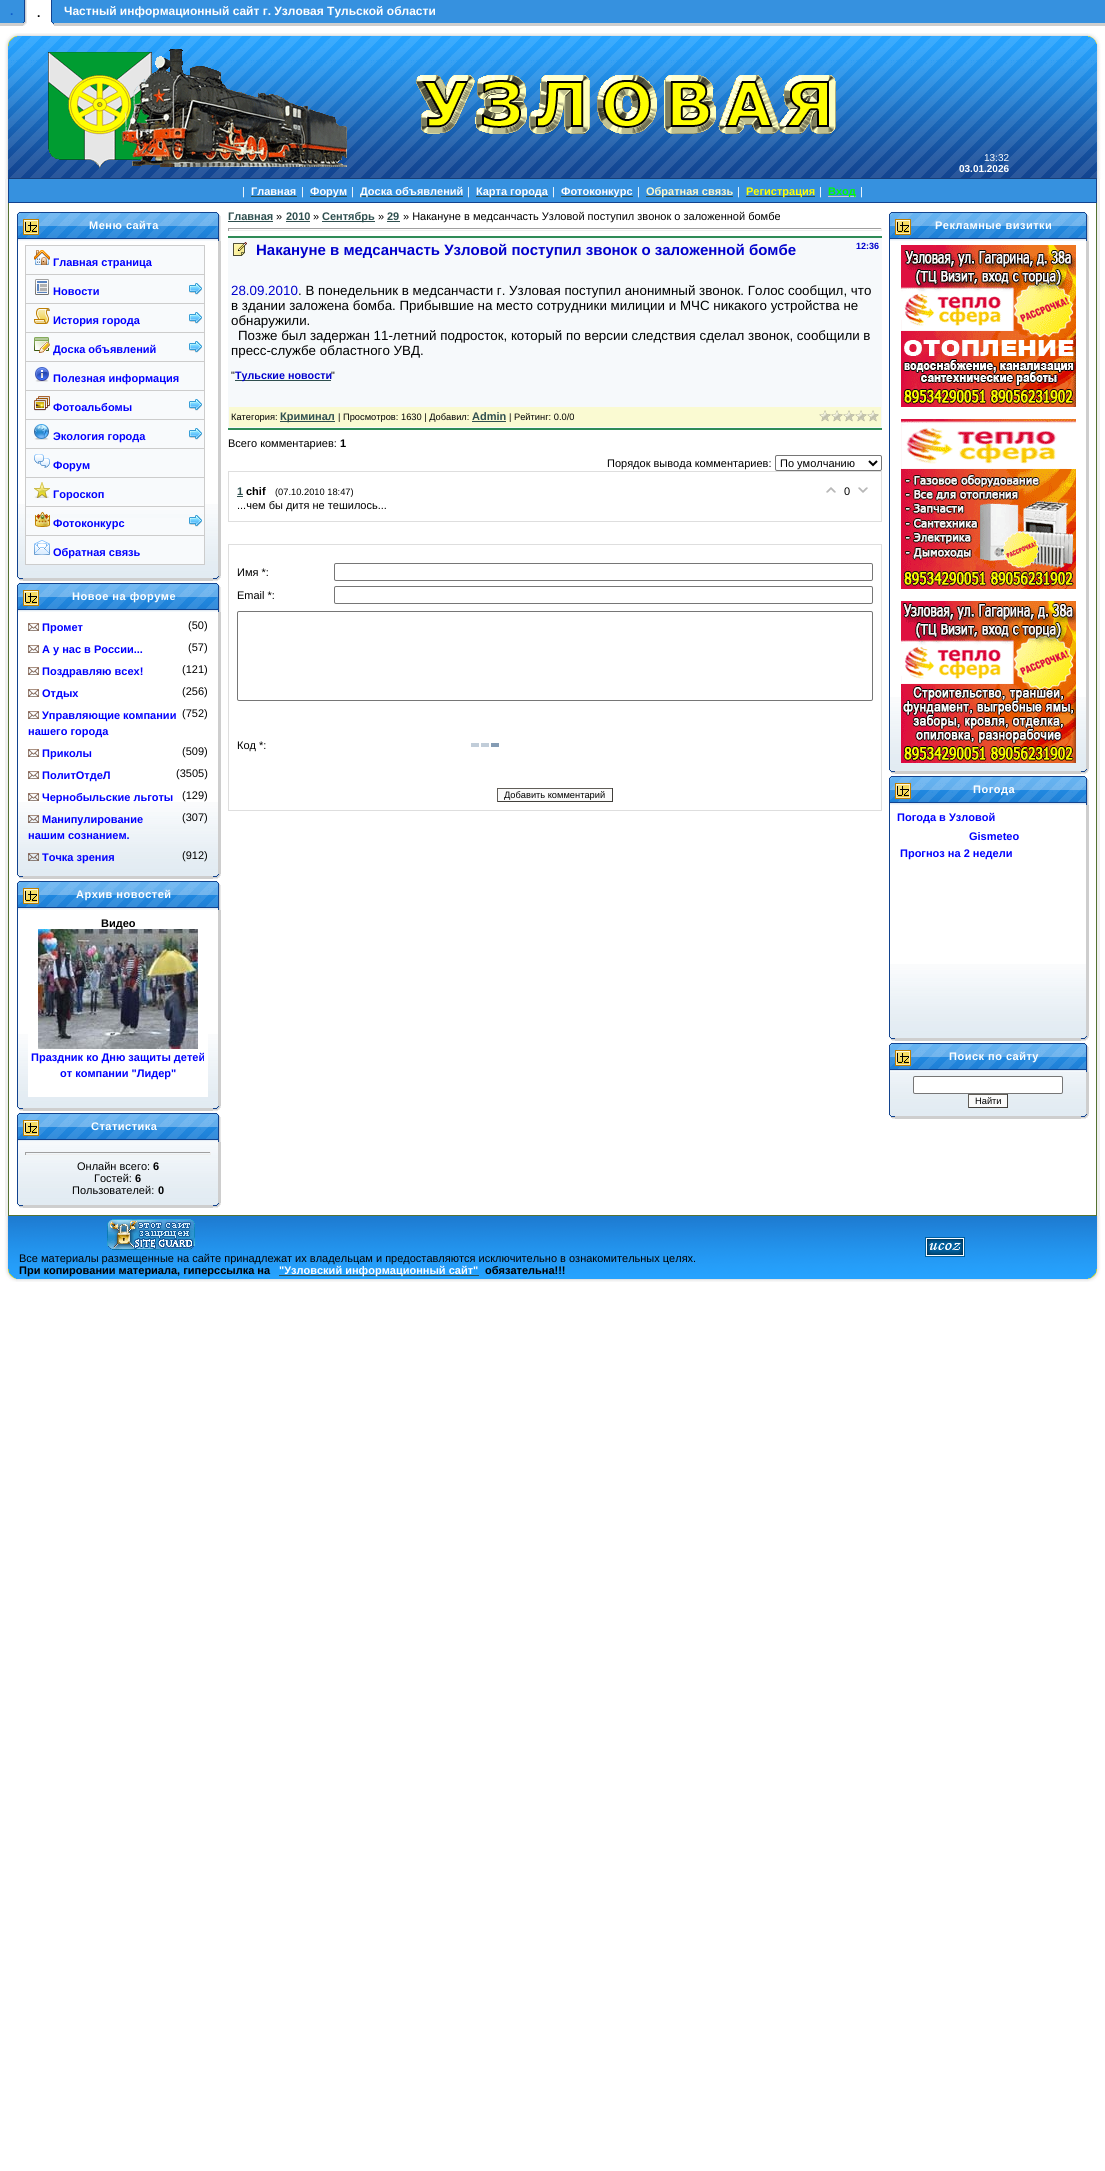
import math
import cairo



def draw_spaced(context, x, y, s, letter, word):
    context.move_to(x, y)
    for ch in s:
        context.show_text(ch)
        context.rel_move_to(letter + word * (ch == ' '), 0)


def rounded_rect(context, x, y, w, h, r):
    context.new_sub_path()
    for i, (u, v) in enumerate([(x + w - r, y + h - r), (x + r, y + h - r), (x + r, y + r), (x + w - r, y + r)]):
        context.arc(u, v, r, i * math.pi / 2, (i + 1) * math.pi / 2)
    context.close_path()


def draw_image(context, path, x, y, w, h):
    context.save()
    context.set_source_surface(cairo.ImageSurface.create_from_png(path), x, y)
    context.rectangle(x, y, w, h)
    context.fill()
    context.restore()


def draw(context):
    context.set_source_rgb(1, 1, 1)
    context.paint()
    context.set_source_rgb(54 / 255, 145 / 255, 223 / 255)
    context.rectangle(0, 0, 1105, 23)
    context.fill()
    context.set_source_rgb(206 / 255, 206 / 255, 206 / 255)
    context.rectangle(0, 23, 1105, 3)
    context.fill()
    draw_image(context, "images/1.png", 23, 0, 4, 26)
    draw_image(context, "images/2.png", 51, 0, 3, 26)
    context.set_source_rgb(1, 1, 1)
    context.rectangle(27, 0, 24, 26)
    context.fill()
    draw_image(context, "images/3.png", 8, 33, 1089, 146)
    draw_image(context, "images/4.png", 0, 33, 17, 146)
    draw_image(context, "images/5.png", 48, 49, 299, 119)
    draw_image(context, "images/6.png", 416, 75, 420, 59)
    draw_image(context, "images/7.png", 1088, 33, 17, 146)
    context.set_source_rgb(240 / 255, 240 / 255, 240 / 255)
    context.rectangle(5, 179, 3, 1037)
    context.fill()
    context.set_source_rgb(54 / 255, 145 / 255, 223 / 255)
    context.rectangle(9, 179, 1087, 23)
    context.fill()
    context.set_source_rgb(18 / 255, 67 / 255, 143 / 255)
    context.rectangle(1096, 179, 1, 24)
    context.fill()
    context.rectangle(8, 202, 1089, 1)
    context.fill()
    context.rectangle(8, 179, 1, 24)
    context.fill()
    context.set_source_rgb(47 / 255, 79 / 255, 79 / 255)
    context.rectangle(251, 196, 46, 1)
    context.fill()
    context.rectangle(310, 196, 37, 1)
    context.fill()
    context.rectangle(360, 196, 103, 1)
    context.fill()
    context.rectangle(476, 196, 72, 1)
    context.fill()
    context.rectangle(561, 196, 72, 1)
    context.fill()
    context.rectangle(646, 196, 87, 1)
    context.fill()
    context.rectangle(746, 196, 69, 1)
    context.fill()
    context.set_source_rgb(204 / 255, 204 / 255, 204 / 255)
    context.rectangle(828, 196, 28, 1)
    context.fill()
    context.set_source_rgb(240 / 255, 240 / 255, 240 / 255)
    context.rectangle(1097, 179, 3, 1037)
    context.fill()
    context.set_source_rgb(86 / 255, 115 / 255, 49 / 255)
    context.rectangle(1096, 203, 1, 1013)
    context.fill()
    context.rectangle(8, 1215, 1089, 1)
    context.fill()
    context.rectangle(8, 203, 1, 1013)
    context.fill()
    draw_image(context, "images/8.png", 18, 213, 200, 25)
    draw_image(context, "images/9.png", 17, 212, 6, 29)
    draw_image(context, "images/10.png", 23, 212, 190, 29)
    draw_image(context, "images/11.png", 23, 219, 16, 16)
    draw_image(context, "images/12.png", 213, 212, 8, 29)
    draw_image(context, "images/13.png", 18, 504, 200, 74)
    context.set_source_rgb(18 / 255, 67 / 255, 143 / 255)
    context.rectangle(17, 241, 1, 335)
    context.fill()
    context.set_source_rgb(204 / 255, 204 / 255, 204 / 255)
    context.rectangle(25, 564, 180, 1)
    context.fill()
    context.set_source_rgb(248 / 255, 250 / 255, 252 / 255)
    context.rectangle(26, 246, 178, 28)
    context.fill()
    context.set_source_rgb(204 / 255, 204 / 255, 204 / 255)
    context.rectangle(25, 245, 180, 1)
    context.fill()
    context.rectangle(204, 245, 1, 29)
    context.fill()
    context.rectangle(25, 245, 1, 29)
    context.fill()
    draw_image(context, "images/14.png", 34, 250, 16, 15)
    context.set_source_rgb(248 / 255, 250 / 255, 252 / 255)
    context.rectangle(26, 275, 178, 28)
    context.fill()
    draw_image(context, "images/15.png", 189, 283, 13, 12)
    context.set_source_rgb(204 / 255, 204 / 255, 204 / 255)
    context.rectangle(25, 274, 180, 1)
    context.fill()
    context.rectangle(204, 274, 1, 29)
    context.fill()
    context.rectangle(25, 274, 1, 29)
    context.fill()
    draw_image(context, "images/16.png", 35, 279, 14, 16)
    context.set_source_rgb(248 / 255, 250 / 255, 252 / 255)
    context.rectangle(26, 304, 178, 28)
    context.fill()
    draw_image(context, "images/15.png", 189, 312, 13, 12)
    context.set_source_rgb(204 / 255, 204 / 255, 204 / 255)
    context.rectangle(25, 303, 180, 1)
    context.fill()
    context.rectangle(204, 303, 1, 29)
    context.fill()
    context.rectangle(25, 303, 1, 29)
    context.fill()
    draw_image(context, "images/17.png", 34, 308, 16, 16)
    context.set_source_rgb(248 / 255, 250 / 255, 252 / 255)
    context.rectangle(26, 333, 178, 28)
    context.fill()
    draw_image(context, "images/15.png", 189, 341, 13, 12)
    context.set_source_rgb(204 / 255, 204 / 255, 204 / 255)
    context.rectangle(25, 332, 180, 1)
    context.fill()
    context.rectangle(204, 332, 1, 29)
    context.fill()
    context.rectangle(25, 332, 1, 29)
    context.fill()
    draw_image(context, "images/18.png", 34, 337, 16, 16)
    context.set_source_rgb(248 / 255, 250 / 255, 252 / 255)
    context.rectangle(26, 362, 178, 28)
    context.fill()
    context.set_source_rgb(204 / 255, 204 / 255, 204 / 255)
    context.rectangle(25, 361, 180, 1)
    context.fill()
    context.rectangle(204, 361, 1, 29)
    context.fill()
    context.rectangle(25, 361, 1, 29)
    context.fill()
    draw_image(context, "images/19.png", 35, 367, 14, 15)
    context.set_source_rgb(248 / 255, 250 / 255, 252 / 255)
    context.rectangle(26, 391, 178, 28)
    context.fill()
    draw_image(context, "images/15.png", 189, 399, 13, 12)
    context.set_source_rgb(204 / 255, 204 / 255, 204 / 255)
    context.rectangle(25, 390, 180, 1)
    context.fill()
    context.rectangle(204, 390, 1, 29)
    context.fill()
    context.rectangle(25, 390, 1, 29)
    context.fill()
    draw_image(context, "images/20.png", 34, 396, 16, 15)
    context.set_source_rgb(248 / 255, 250 / 255, 252 / 255)
    context.rectangle(26, 420, 178, 28)
    context.fill()
    draw_image(context, "images/15.png", 189, 428, 13, 12)
    context.set_source_rgb(204 / 255, 204 / 255, 204 / 255)
    context.rectangle(25, 419, 180, 1)
    context.fill()
    context.rectangle(204, 419, 1, 29)
    context.fill()
    context.rectangle(25, 419, 1, 29)
    context.fill()
    draw_image(context, "images/21.png", 34, 424, 15, 16)
    context.set_source_rgb(248 / 255, 250 / 255, 252 / 255)
    context.rectangle(26, 449, 178, 28)
    context.fill()
    context.set_source_rgb(204 / 255, 204 / 255, 204 / 255)
    context.rectangle(25, 448, 180, 1)
    context.fill()
    context.rectangle(204, 448, 1, 29)
    context.fill()
    context.rectangle(25, 448, 1, 29)
    context.fill()
    draw_image(context, "images/22.png", 34, 454, 16, 14)
    context.set_source_rgb(248 / 255, 250 / 255, 252 / 255)
    context.rectangle(26, 478, 178, 26)
    context.fill()
    context.set_source_rgb(204 / 255, 204 / 255, 204 / 255)
    context.rectangle(25, 477, 180, 1)
    context.fill()
    context.rectangle(204, 477, 1, 29)
    context.fill()
    context.rectangle(25, 477, 1, 29)
    context.fill()
    draw_image(context, "images/23.png", 34, 482, 16, 16)
    context.set_source_rgb(248 / 255, 250 / 255, 252 / 255)
    context.rectangle(26, 518, 178, 17)
    context.fill()
    draw_image(context, "images/15.png", 189, 515, 13, 12)
    context.set_source_rgb(204 / 255, 204 / 255, 204 / 255)
    context.rectangle(25, 506, 180, 1)
    context.fill()
    context.rectangle(204, 506, 1, 29)
    context.fill()
    context.rectangle(25, 506, 1, 29)
    context.fill()
    draw_image(context, "images/24.png", 35, 511, 15, 16)
    context.set_source_rgb(248 / 255, 250 / 255, 252 / 255)
    context.rectangle(26, 536, 178, 28)
    context.fill()
    context.set_source_rgb(204 / 255, 204 / 255, 204 / 255)
    context.rectangle(25, 535, 180, 1)
    context.fill()
    context.rectangle(204, 535, 1, 29)
    context.fill()
    context.rectangle(25, 535, 1, 29)
    context.fill()
    draw_image(context, "images/25.png", 34, 540, 16, 15)
    context.set_source_rgb(206 / 255, 206 / 255, 206 / 255)
    context.rectangle(218, 241, 3, 335)
    context.fill()
    draw_image(context, "images/26.png", 17, 576, 6, 5)
    context.rectangle(23, 578, 190, 3)
    context.fill()
    draw_image(context, "images/27.png", 213, 576, 8, 5)
    draw_image(context, "images/8.png", 18, 584, 200, 25)
    draw_image(context, "images/9.png", 17, 583, 6, 29)
    draw_image(context, "images/10.png", 23, 583, 190, 29)
    draw_image(context, "images/11.png", 23, 590, 16, 16)
    draw_image(context, "images/12.png", 213, 583, 8, 29)
    draw_image(context, "images/13.png", 18, 802, 200, 74)
    context.set_source_rgb(18 / 255, 67 / 255, 143 / 255)
    context.rectangle(17, 612, 1, 262)
    context.fill()
    draw_image(context, "images/28.png", 28, 623, 11, 8)
    draw_image(context, "images/28.png", 28, 645, 11, 8)
    draw_image(context, "images/28.png", 28, 667, 11, 8)
    draw_image(context, "images/28.png", 28, 689, 11, 8)
    draw_image(context, "images/28.png", 28, 711, 11, 8)
    draw_image(context, "images/28.png", 28, 749, 11, 8)
    draw_image(context, "images/28.png", 28, 771, 11, 8)
    draw_image(context, "images/28.png", 28, 793, 11, 8)
    draw_image(context, "images/29.png", 28, 815, 11, 8)
    draw_image(context, "images/30.png", 28, 853, 11, 8)
    context.set_source_rgb(206 / 255, 206 / 255, 206 / 255)
    context.rectangle(218, 612, 3, 262)
    context.fill()
    draw_image(context, "images/26.png", 17, 874, 6, 5)
    context.rectangle(23, 876, 190, 3)
    context.fill()
    draw_image(context, "images/27.png", 213, 874, 8, 5)
    draw_image(context, "images/8.png", 18, 882, 200, 25)
    draw_image(context, "images/9.png", 17, 881, 6, 29)
    draw_image(context, "images/10.png", 23, 881, 190, 29)
    draw_image(context, "images/11.png", 23, 888, 16, 16)
    draw_image(context, "images/12.png", 213, 881, 8, 29)
    draw_image(context, "images/13.png", 18, 1034, 200, 74)
    context.set_source_rgb(18 / 255, 67 / 255, 143 / 255)
    context.rectangle(17, 910, 1, 196)
    context.fill()
    context.set_source_rgb(1, 1, 1)
    context.rectangle(28, 1034, 180, 63)
    context.fill()
    context.set_source_rgb(206 / 255, 206 / 255, 206 / 255)
    context.rectangle(218, 910, 3, 196)
    context.fill()
    draw_image(context, "images/26.png", 17, 1106, 6, 5)
    context.rectangle(23, 1108, 190, 3)
    context.fill()
    draw_image(context, "images/27.png", 213, 1106, 8, 5)
    draw_image(context, "images/8.png", 18, 1114, 200, 25)
    draw_image(context, "images/9.png", 17, 1113, 6, 29)
    draw_image(context, "images/10.png", 23, 1113, 190, 29)
    draw_image(context, "images/11.png", 23, 1120, 16, 16)
    draw_image(context, "images/12.png", 213, 1113, 8, 29)
    draw_image(context, "images/32.png", 18, 1142, 200, 63)
    context.set_source_rgb(18 / 255, 67 / 255, 143 / 255)
    context.rectangle(17, 1142, 1, 61)
    context.fill()
    context.set_source_rgb(159 / 255, 159 / 255, 159 / 255)
    context.rectangle(25, 1152, 186, 1)
    context.fill()
    context.set_source_rgb(238 / 255, 238 / 255, 238 / 255)
    context.rectangle(210, 1152, 1, 3)
    context.fill()
    context.rectangle(25, 1154, 186, 1)
    context.fill()
    context.set_source_rgb(159 / 255, 159 / 255, 159 / 255)
    context.rectangle(25, 1152, 1, 3)
    context.fill()
    context.set_source_rgb(206 / 255, 206 / 255, 206 / 255)
    context.rectangle(218, 1142, 3, 61)
    context.fill()
    draw_image(context, "images/26.png", 17, 1203, 6, 5)
    context.rectangle(23, 1205, 190, 3)
    context.fill()
    draw_image(context, "images/27.png", 213, 1203, 8, 5)
    context.set_source_rgb(47 / 255, 79 / 255, 79 / 255)
    context.rectangle(228, 221, 45, 1)
    context.fill()
    context.rectangle(286, 221, 24, 1)
    context.fill()
    context.rectangle(322, 221, 53, 1)
    context.fill()
    context.rectangle(387, 221, 13, 1)
    context.fill()
    context.set_source_rgb(159 / 255, 159 / 255, 159 / 255)
    context.rectangle(228, 228, 654, 1)
    context.fill()
    context.set_source_rgb(238 / 255, 238 / 255, 238 / 255)
    context.rectangle(881, 228, 1, 3)
    context.fill()
    context.rectangle(228, 230, 654, 1)
    context.fill()
    context.set_source_rgb(159 / 255, 159 / 255, 159 / 255)
    context.rectangle(228, 228, 1, 3)
    context.fill()
    context.set_source_rgb(246 / 255, 249 / 255, 251 / 255)
    context.rectangle(228, 238, 654, 190)
    context.fill()
    context.set_source_rgb(46 / 255, 139 / 255, 87 / 255)
    context.rectangle(228, 236, 654, 2)
    context.fill()
    context.rectangle(228, 428, 654, 2)
    context.fill()
    draw_image(context, "images/33.png", 233, 242, 14, 14)
    context.set_source_rgb(47 / 255, 79 / 255, 79 / 255)
    context.rectangle(235, 380, 96, 1)
    context.fill()
    context.set_source_rgb(250 / 255, 250 / 255, 210 / 255)
    context.rectangle(229, 407, 652, 20)
    context.fill()
    context.set_source_rgb(47 / 255, 79 / 255, 79 / 255)
    context.rectangle(280, 421, 55, 1)
    context.fill()
    context.rectangle(472, 421, 34, 1)
    context.fill()
    draw_image(context, "images/34.png", 819, 410, 60, 12)
    rounded_rect(context, 775.5, 455.5, 106, 15, 1.5)
    context.set_source_rgb(118 / 255, 118 / 255, 118 / 255)
    context.set_line_width(1)
    context.stroke()
    context.new_path()
    context.move_to(869, 461)
    context.line_to(873, 465)
    context.line_to(877, 461)
    context.set_source_rgb(0, 0, 0)
    context.set_line_width(2)
    context.stroke()
    context.rectangle(228.5, 471.5, 653, 50)
    context.set_source_rgb(222 / 255, 222 / 255, 222 / 255)
    context.set_line_width(1)
    context.stroke()
    context.set_source_rgb(47 / 255, 79 / 255, 79 / 255)
    context.rectangle(237, 496, 6, 1)
    context.fill()
    draw_image(context, "images/35.png", 826, 487, 10, 6)
    draw_image(context, "images/36.png", 858, 487, 10, 6)
    context.rectangle(228.5, 544.5, 653, 266)
    context.set_source_rgb(222 / 255, 222 / 255, 222 / 255)
    context.stroke()
    rounded_rect(context, 334.5, 563.5, 538, 17, 1.5)
    context.set_source_rgb(118 / 255, 118 / 255, 118 / 255)
    context.stroke()
    rounded_rect(context, 334.5, 586.5, 538, 17, 1.5)
    context.stroke()
    rounded_rect(context, 237.5, 611.5, 635, 89, 1.5)
    context.stroke()
    draw_image(context, "images/37.png", 471, 743, 28, 4)
    context.set_source_rgb(250 / 255, 250 / 255, 250 / 255)
    context.rectangle(498, 789, 114, 12)
    context.fill()
    context.set_source_rgb(97 / 255, 94 / 255, 88 / 255)
    context.rectangle(497, 788, 116, 1)
    context.fill()
    context.set_source_rgb(65 / 255, 63 / 255, 59 / 255)
    context.rectangle(612, 788, 1, 14)
    context.fill()
    context.rectangle(497, 801, 116, 1)
    context.fill()
    context.set_source_rgb(97 / 255, 94 / 255, 88 / 255)
    context.rectangle(497, 788, 1, 14)
    context.fill()
    draw_image(context, "images/38.png", 890, 213, 196, 25)
    draw_image(context, "images/9.png", 889, 212, 6, 29)
    draw_image(context, "images/39.png", 895, 212, 186, 29)
    draw_image(context, "images/11.png", 895, 219, 16, 16)
    draw_image(context, "images/40.png", 1081, 212, 8, 29)
    draw_image(context, "images/41.png", 890, 697, 196, 74)
    context.set_source_rgb(18 / 255, 67 / 255, 143 / 255)
    context.rectangle(889, 241, 1, 528)
    context.fill()
    draw_image(context, "images/42.png", 901, 245, 175, 162)
    draw_image(context, "images/43.png", 901, 419, 175, 170)
    draw_image(context, "images/44.png", 901, 601, 175, 162)
    context.set_source_rgb(206 / 255, 206 / 255, 206 / 255)
    context.rectangle(1086, 241, 3, 528)
    context.fill()
    draw_image(context, "images/26.png", 889, 769, 6, 5)
    context.rectangle(895, 771, 186, 3)
    context.fill()
    draw_image(context, "images/27.png", 1081, 769, 8, 5)
    draw_image(context, "images/38.png", 890, 777, 196, 25)
    draw_image(context, "images/9.png", 889, 776, 6, 29)
    draw_image(context, "images/39.png", 895, 776, 186, 29)
    draw_image(context, "images/11.png", 895, 783, 16, 16)
    draw_image(context, "images/40.png", 1081, 776, 8, 29)
    draw_image(context, "images/41.png", 890, 964, 196, 74)
    context.set_source_rgb(18 / 255, 67 / 255, 143 / 255)
    context.rectangle(889, 805, 1, 231)
    context.fill()
    context.set_source_rgb(206 / 255, 206 / 255, 206 / 255)
    context.rectangle(1086, 805, 3, 231)
    context.fill()
    draw_image(context, "images/26.png", 889, 1036, 6, 5)
    context.rectangle(895, 1038, 186, 3)
    context.fill()
    draw_image(context, "images/27.png", 1081, 1036, 8, 5)
    draw_image(context, "images/38.png", 890, 1044, 196, 25)
    draw_image(context, "images/9.png", 889, 1043, 6, 29)
    draw_image(context, "images/39.png", 895, 1043, 186, 29)
    draw_image(context, "images/11.png", 895, 1050, 16, 16)
    draw_image(context, "images/40.png", 1081, 1043, 8, 29)
    draw_image(context, "images/45.png", 890, 1072, 196, 44)
    context.set_source_rgb(18 / 255, 67 / 255, 143 / 255)
    context.rectangle(889, 1072, 1, 42)
    context.fill()
    context.set_source_rgb(1, 1, 1)
    rounded_rect(context, 913.5, 1076.5, 149, 17, 1.5)
    context.fill_preserve()
    context.set_source_rgb(118 / 255, 118 / 255, 118 / 255)
    context.stroke()
    context.set_source_rgb(250 / 255, 250 / 255, 250 / 255)
    context.rectangle(969, 1095, 38, 12)
    context.fill()
    context.set_source_rgb(97 / 255, 94 / 255, 88 / 255)
    context.rectangle(968, 1094, 40, 1)
    context.fill()
    context.set_source_rgb(65 / 255, 63 / 255, 59 / 255)
    context.rectangle(1007, 1094, 1, 14)
    context.fill()
    context.rectangle(968, 1107, 40, 1)
    context.fill()
    context.set_source_rgb(97 / 255, 94 / 255, 88 / 255)
    context.rectangle(968, 1094, 1, 14)
    context.fill()
    context.set_source_rgb(206 / 255, 206 / 255, 206 / 255)
    context.rectangle(1086, 1072, 3, 42)
    context.fill()
    draw_image(context, "images/26.png", 889, 1114, 6, 5)
    context.rectangle(895, 1116, 186, 3)
    context.fill()
    draw_image(context, "images/27.png", 1081, 1114, 8, 5)
    draw_image(context, "images/46.png", 8, 1216, 1089, 66)
    draw_image(context, "images/47.png", 0, 1216, 16, 66)
    draw_image(context, "images/48.png", 107, 1219, 88, 31)
    context.set_source_rgb(47 / 255, 79 / 255, 79 / 255)
    context.rectangle(279, 1275, 200, 1)
    context.fill()
    draw_image(context, "images/49.png", 1088, 1216, 17, 66)
    draw_image(context, "images/50.png", 925, 1237, 40, 20)
    context.select_font_face("Liberation Sans", cairo.FontSlant.NORMAL, cairo.FontWeight.BOLD)
    context.set_font_size(12)
    context.set_source_rgb(13 / 255, 94 / 255, 205 / 255)
    context.move_to(10, 15)
    context.show_text(".")
    context.set_source_rgb(1, 1, 1)
    context.move_to(64, 15)
    context.show_text("Частный информационный сайт г. Узловая Тульской области")
    context.set_source_rgb(0, 0, 0)
    context.move_to(37, 17)
    context.show_text(".")
    context.select_font_face("Liberation Sans")
    context.set_font_size(10)
    context.set_source_rgb(1, 1, 1)
    context.move_to(984, 161)
    context.show_text("13:32")
    context.select_font_face("Liberation Sans", cairo.FontSlant.NORMAL, cairo.FontWeight.BOLD)
    context.move_to(959, 172)
    context.show_text("03.01.2026")
    context.select_font_face("Liberation Sans")
    context.set_font_size(11)
    context.move_to(242, 195)
    context.show_text("|")
    context.select_font_face("Liberation Sans", cairo.FontSlant.NORMAL, cairo.FontWeight.BOLD)
    context.move_to(251, 195)
    context.show_text("Главная")
    context.select_font_face("Liberation Sans")
    context.move_to(301, 195)
    context.show_text("|")
    context.select_font_face("Liberation Sans", cairo.FontSlant.NORMAL, cairo.FontWeight.BOLD)
    context.move_to(310, 195)
    context.show_text("Форум")
    context.select_font_face("Liberation Sans")
    context.move_to(351, 195)
    context.show_text("|")
    context.select_font_face("Liberation Sans", cairo.FontSlant.NORMAL, cairo.FontWeight.BOLD)
    context.move_to(360, 195)
    context.show_text("Доска объявлений")
    context.select_font_face("Liberation Sans")
    context.move_to(467, 195)
    context.show_text("|")
    context.select_font_face("Liberation Sans", cairo.FontSlant.NORMAL, cairo.FontWeight.BOLD)
    context.move_to(476, 195)
    context.show_text("Карта города")
    context.select_font_face("Liberation Sans")
    context.move_to(552, 195)
    context.show_text("|")
    context.select_font_face("Liberation Sans", cairo.FontSlant.NORMAL, cairo.FontWeight.BOLD)
    context.move_to(561, 195)
    context.show_text("Фотоконкурс")
    context.select_font_face("Liberation Sans")
    context.move_to(637, 195)
    context.show_text("|")
    context.select_font_face("Liberation Sans", cairo.FontSlant.NORMAL, cairo.FontWeight.BOLD)
    context.set_source_rgb(1, 250 / 255, 205 / 255)
    context.move_to(646, 195)
    context.show_text("Обратная связь")
    context.select_font_face("Liberation Sans")
    context.set_source_rgb(1, 1, 1)
    context.move_to(737, 195)
    context.show_text("|")
    context.select_font_face("Liberation Sans", cairo.FontSlant.NORMAL, cairo.FontWeight.BOLD)
    context.set_source_rgb(1, 1, 0)
    context.move_to(746, 195)
    context.show_text("Регистрация")
    context.select_font_face("Liberation Sans")
    context.set_source_rgb(1, 1, 1)
    context.move_to(819, 195)
    context.show_text("|")
    context.select_font_face("Liberation Sans", cairo.FontSlant.NORMAL, cairo.FontWeight.BOLD)
    context.set_source_rgb(0, 1, 0)
    context.move_to(828, 195)
    context.show_text("Вход")
    context.select_font_face("Liberation Sans")
    context.set_source_rgb(1, 1, 1)
    context.move_to(860, 195)
    context.show_text("|")
    context.select_font_face("Liberation Sans", cairo.FontSlant.NORMAL, cairo.FontWeight.BOLD)
    draw_spaced(context, 89, 229, "Меню сайта", 0.5, 0)
    context.set_source_rgb(0, 0, 1)
    context.move_to(53, 266)
    context.show_text("Главная страница")
    context.move_to(53, 295)
    context.show_text("Новости")
    context.move_to(53, 324)
    context.show_text("История города")
    context.move_to(53, 353)
    context.show_text("Доска объявлений")
    context.move_to(53, 382)
    context.show_text("Полезная информация")
    context.move_to(53, 411)
    context.show_text("Фотоальбомы")
    context.move_to(53, 440)
    context.show_text("Экология города")
    context.move_to(53, 469)
    context.show_text("Форум")
    context.move_to(53, 498)
    context.show_text("Гороскоп")
    context.move_to(53, 527)
    context.show_text("Фотоконкурс")
    context.move_to(53, 556)
    context.show_text("Обратная связь")
    context.set_source_rgb(1, 1, 1)
    draw_spaced(context, 72, 600, "Новое на форуме", 0.5, 0)
    context.set_source_rgb(0, 0, 1)
    context.move_to(42, 631)
    context.show_text("Промет")
    context.select_font_face("Liberation Sans")
    context.set_source_rgb(0, 0, 0)
    context.move_to(188, 629)
    context.show_text("(50)")
    context.select_font_face("Liberation Sans", cairo.FontSlant.NORMAL, cairo.FontWeight.BOLD)
    context.set_source_rgb(0, 0, 1)
    context.move_to(42, 653)
    context.show_text("А у нас в России...")
    context.select_font_face("Liberation Sans")
    context.set_source_rgb(0, 0, 0)
    context.move_to(188, 651)
    context.show_text("(57)")
    context.select_font_face("Liberation Sans", cairo.FontSlant.NORMAL, cairo.FontWeight.BOLD)
    context.set_source_rgb(0, 0, 1)
    context.move_to(42, 675)
    context.show_text("Поздравляю всех!")
    context.select_font_face("Liberation Sans")
    context.set_source_rgb(0, 0, 0)
    context.move_to(182, 673)
    context.show_text("(121)")
    context.select_font_face("Liberation Sans", cairo.FontSlant.NORMAL, cairo.FontWeight.BOLD)
    context.set_source_rgb(0, 0, 1)
    context.move_to(42, 697)
    context.show_text("Отдых")
    context.select_font_face("Liberation Sans")
    context.set_source_rgb(0, 0, 0)
    context.move_to(182, 695)
    context.show_text("(256)")
    context.select_font_face("Liberation Sans", cairo.FontSlant.NORMAL, cairo.FontWeight.BOLD)
    context.set_source_rgb(0, 0, 1)
    context.move_to(42, 719)
    context.show_text("Управляющие компании")
    context.move_to(28, 735)
    context.show_text("нашего города")
    context.select_font_face("Liberation Sans")
    context.set_source_rgb(0, 0, 0)
    context.move_to(182, 717)
    context.show_text("(752)")
    context.select_font_face("Liberation Sans", cairo.FontSlant.NORMAL, cairo.FontWeight.BOLD)
    context.set_source_rgb(0, 0, 1)
    context.move_to(42, 757)
    context.show_text("Приколы")
    context.select_font_face("Liberation Sans")
    context.set_source_rgb(0, 0, 0)
    context.move_to(182, 755)
    context.show_text("(509)")
    context.select_font_face("Liberation Sans", cairo.FontSlant.NORMAL, cairo.FontWeight.BOLD)
    context.set_source_rgb(0, 0, 1)
    context.move_to(42, 779)
    context.show_text("ПолитОтдеЛ")
    context.select_font_face("Liberation Sans")
    context.set_source_rgb(0, 0, 0)
    context.move_to(176, 777)
    context.show_text("(3505)")
    context.select_font_face("Liberation Sans", cairo.FontSlant.NORMAL, cairo.FontWeight.BOLD)
    context.set_source_rgb(0, 0, 1)
    context.move_to(42, 801)
    context.show_text("Чернобыльские льготы")
    context.select_font_face("Liberation Sans")
    context.set_source_rgb(0, 0, 0)
    context.move_to(182, 799)
    context.show_text("(129)")
    context.select_font_face("Liberation Sans", cairo.FontSlant.NORMAL, cairo.FontWeight.BOLD)
    context.set_source_rgb(0, 0, 1)
    context.move_to(42, 823)
    context.show_text("Манипулирование")
    context.move_to(28, 839)
    context.show_text("нашим сознанием.")
    context.select_font_face("Liberation Sans")
    context.set_source_rgb(0, 0, 0)
    context.move_to(182, 821)
    context.show_text("(307)")
    context.select_font_face("Liberation Sans", cairo.FontSlant.NORMAL, cairo.FontWeight.BOLD)
    context.set_source_rgb(0, 0, 1)
    context.move_to(42, 861)
    context.show_text("Точка зрения")
    context.select_font_face("Liberation Sans")
    context.set_source_rgb(0, 0, 0)
    context.move_to(182, 859)
    context.show_text("(912)")
    context.select_font_face("Liberation Sans", cairo.FontSlant.NORMAL, cairo.FontWeight.BOLD)
    context.set_source_rgb(1, 1, 1)
    draw_spaced(context, 76, 898, "Архив новостей", 0.5, 0)
    context.set_source_rgb(0, 0, 0)
    context.move_to(101, 927)
    context.show_text("Видео")
    draw_image(context, "images/31.png", 38, 929, 160, 120)
    context.set_source_rgb(0, 0, 1)
    context.move_to(31, 1061)
    context.show_text("Праздник ко Дню защиты детей")
    context.move_to(60, 1077)
    context.show_text("от компании \"Лидер\"")
    context.set_source_rgb(1, 1, 1)
    draw_spaced(context, 91, 1130, "Статистика", 0.5, 0)
    context.select_font_face("Liberation Sans")
    context.set_source_rgb(0, 0, 0)
    context.move_to(77, 1170)
    context.show_text("Онлайн всего:")
    context.select_font_face("Liberation Sans", cairo.FontSlant.NORMAL, cairo.FontWeight.BOLD)
    context.move_to(153, 1170)
    context.show_text("6")
    context.select_font_face("Liberation Sans")
    context.move_to(94, 1182)
    context.show_text("Гостей:")
    context.select_font_face("Liberation Sans", cairo.FontSlant.NORMAL, cairo.FontWeight.BOLD)
    context.move_to(135, 1182)
    context.show_text("6")
    context.select_font_face("Liberation Sans")
    context.move_to(72, 1194)
    context.show_text("Пользователей:")
    context.select_font_face("Liberation Sans", cairo.FontSlant.NORMAL, cairo.FontWeight.BOLD)
    context.move_to(158, 1194)
    context.show_text("0")
    context.set_source_rgb(47 / 255, 79 / 255, 79 / 255)
    context.move_to(228, 220)
    context.show_text("Главная")
    context.select_font_face("Liberation Sans")
    context.set_source_rgb(0, 0, 0)
    context.move_to(276, 220)
    context.show_text("»")
    context.select_font_face("Liberation Sans", cairo.FontSlant.NORMAL, cairo.FontWeight.BOLD)
    context.set_source_rgb(47 / 255, 79 / 255, 79 / 255)
    context.move_to(286, 220)
    context.show_text("2010")
    context.select_font_face("Liberation Sans")
    context.set_source_rgb(0, 0, 0)
    context.move_to(313, 220)
    context.show_text("»")
    context.select_font_face("Liberation Sans", cairo.FontSlant.NORMAL, cairo.FontWeight.BOLD)
    context.set_source_rgb(47 / 255, 79 / 255, 79 / 255)
    context.move_to(322, 220)
    context.show_text("Сентябрь")
    context.select_font_face("Liberation Sans")
    context.set_source_rgb(0, 0, 0)
    context.move_to(378, 220)
    context.show_text("»")
    context.select_font_face("Liberation Sans", cairo.FontSlant.NORMAL, cairo.FontWeight.BOLD)
    context.set_source_rgb(47 / 255, 79 / 255, 79 / 255)
    context.move_to(387, 220)
    context.show_text("29")
    context.select_font_face("Liberation Sans")
    context.set_source_rgb(0, 0, 0)
    context.move_to(403, 220)
    context.show_text("» Накануне в медсанчасть Узловой поступил звонок о заложенной бомбе")
    context.select_font_face("Liberation Sans", cairo.FontSlant.NORMAL, cairo.FontWeight.BOLD)
    context.set_font_size(15)
    context.set_source_rgb(0, 0, 205 / 255)
    context.move_to(256, 255)
    context.show_text("Накануне в медсанчасть Узловой поступил звонок о заложенной бомбе")
    context.set_font_size(9)
    context.move_to(856, 249)
    context.show_text("12:36")
    context.select_font_face("Liberation Sans")
    context.set_font_size(13.35)
    context.move_to(231, 295)
    context.show_text("28.09.2010")
    context.set_source_rgb(0, 0, 0)
    context.move_to(298, 295)
    context.show_text(". В понедельник в медсанчасти г. Узловая поступил анонимный звонок. Голос сообщил, что")
    context.move_to(231, 310)
    context.show_text("в здании заложена бомба. Прибывшие на место сотрудники милиции и МЧС никакого устройства не")
    context.move_to(231, 325)
    context.show_text("обнаружили.")
    context.move_to(238, 340)
    context.show_text("Позже был задержан 11-летний подросток, который по версии следствия сделал звонок, сообщили в")
    context.move_to(231, 355)
    context.show_text("пресс-службе областного УВД.")
    context.set_font_size(10.75)
    context.move_to(231, 379)
    context.show_text("\"")
    context.select_font_face("Liberation Sans", cairo.FontSlant.NORMAL, cairo.FontWeight.BOLD)
    context.set_source_rgb(0, 0, 205 / 255)
    context.move_to(235, 379)
    context.show_text("Тульские новости")
    context.select_font_face("Liberation Sans")
    context.set_source_rgb(0, 0, 0)
    context.move_to(331, 379)
    context.show_text("\"")
    context.set_font_size(9.3)
    context.move_to(231, 420)
    context.show_text("Категория:")
    context.select_font_face("Liberation Sans", cairo.FontSlant.NORMAL, cairo.FontWeight.BOLD)
    context.set_font_size(11)
    context.set_source_rgb(47 / 255, 79 / 255, 79 / 255)
    context.move_to(280, 420)
    context.show_text("Криминал")
    context.select_font_face("Liberation Sans")
    context.set_font_size(9.3)
    context.set_source_rgb(0, 0, 0)
    context.move_to(338, 420)
    context.show_text("| Просмотров: 1630 | Добавил:")
    context.select_font_face("Liberation Sans", cairo.FontSlant.NORMAL, cairo.FontWeight.BOLD)
    context.set_font_size(11)
    context.set_source_rgb(47 / 255, 79 / 255, 79 / 255)
    context.move_to(472, 420)
    context.show_text("Admin")
    context.select_font_face("Liberation Sans")
    context.set_font_size(9.3)
    context.set_source_rgb(0, 0, 0)
    context.move_to(509, 420)
    context.show_text("| Рейтинг: 0.0/0")
    context.set_font_size(11)
    context.move_to(228, 447)
    context.show_text("Всего комментариев:")
    context.select_font_face("Liberation Sans", cairo.FontSlant.NORMAL, cairo.FontWeight.BOLD)
    context.move_to(340, 447)
    context.show_text("1")
    context.select_font_face("Liberation Sans")
    context.move_to(607, 467)
    context.show_text("Порядок вывода комментариев:")
    context.move_to(780, 467)
    context.show_text("По умолчанию")
    context.select_font_face("Liberation Sans", cairo.FontSlant.NORMAL, cairo.FontWeight.BOLD)
    context.set_source_rgb(47 / 255, 79 / 255, 79 / 255)
    context.move_to(237, 495)
    context.show_text("1")
    context.set_source_rgb(0, 0, 0)
    context.move_to(246, 495)
    context.show_text("chif")
    context.select_font_face("Liberation Sans")
    context.set_font_size(9.3)
    context.move_to(275, 495)
    context.show_text("(07.10.2010 18:47)")
    context.set_font_size(11)
    context.move_to(844, 495)
    context.show_text("0")
    context.move_to(237, 509)
    context.show_text("...чем бы дитя не тешилось...")
    context.move_to(237, 576)
    context.show_text("Имя *:")
    context.move_to(237, 599)
    context.show_text("Email *:")
    context.move_to(237, 749)
    context.show_text("Код *:")
    context.set_font_size(9.3)
    context.move_to(504, 798)
    context.show_text("Добавить комментарий")
    context.select_font_face("Liberation Sans", cairo.FontSlant.NORMAL, cairo.FontWeight.BOLD)
    context.set_font_size(11)
    context.set_source_rgb(1, 1, 1)
    draw_spaced(context, 935, 229, "Рекламные визитки", 0.5, 0)
    draw_spaced(context, 973, 793, "Погода", 0.5, 0)
    context.set_source_rgb(0, 0, 1)
    context.move_to(897, 821)
    context.show_text("Погода в Узловой")
    context.move_to(969, 840)
    context.show_text("Gismeteo")
    context.move_to(900, 857)
    context.show_text("Прогноз на 2 недели")
    context.set_source_rgb(1, 1, 1)
    draw_spaced(context, 949, 1060, "Поиск по сайту", 0.5, 0)
    context.select_font_face("Liberation Sans")
    context.set_font_size(9.3)
    context.set_source_rgb(0, 0, 0)
    context.move_to(975, 1104)
    context.show_text("Найти")
    context.set_font_size(11)
    context.move_to(19, 1262)
    context.show_text("Все материалы размещенные на сайте принадлежат их владельцам и предоставляются исключительно в ознакомительных целях.")
    context.select_font_face("Liberation Sans", cairo.FontSlant.NORMAL, cairo.FontWeight.BOLD)
    context.move_to(19, 1274)
    context.show_text("При копировании материала, гиперссылка на")
    context.set_source_rgb(1, 1, 1)
    context.move_to(279, 1274)
    context.show_text("\"Узловский информационный сайт\"")
    context.set_source_rgb(0, 0, 0)
    context.move_to(485, 1274)
    context.show_text("обязательна!!!")


surface = cairo.ImageSurface(cairo.Format.RGB24, 1105, 2171)
context = cairo.Context(surface)
options = cairo.FontOptions()
options.set_hint_metrics(cairo.HintMetrics.OFF)
options.set_hint_style(cairo.HintStyle.NONE)
context.set_font_options(options)
context.set_miter_limit(4)
draw(context)
surface.write_to_png("out.png")
